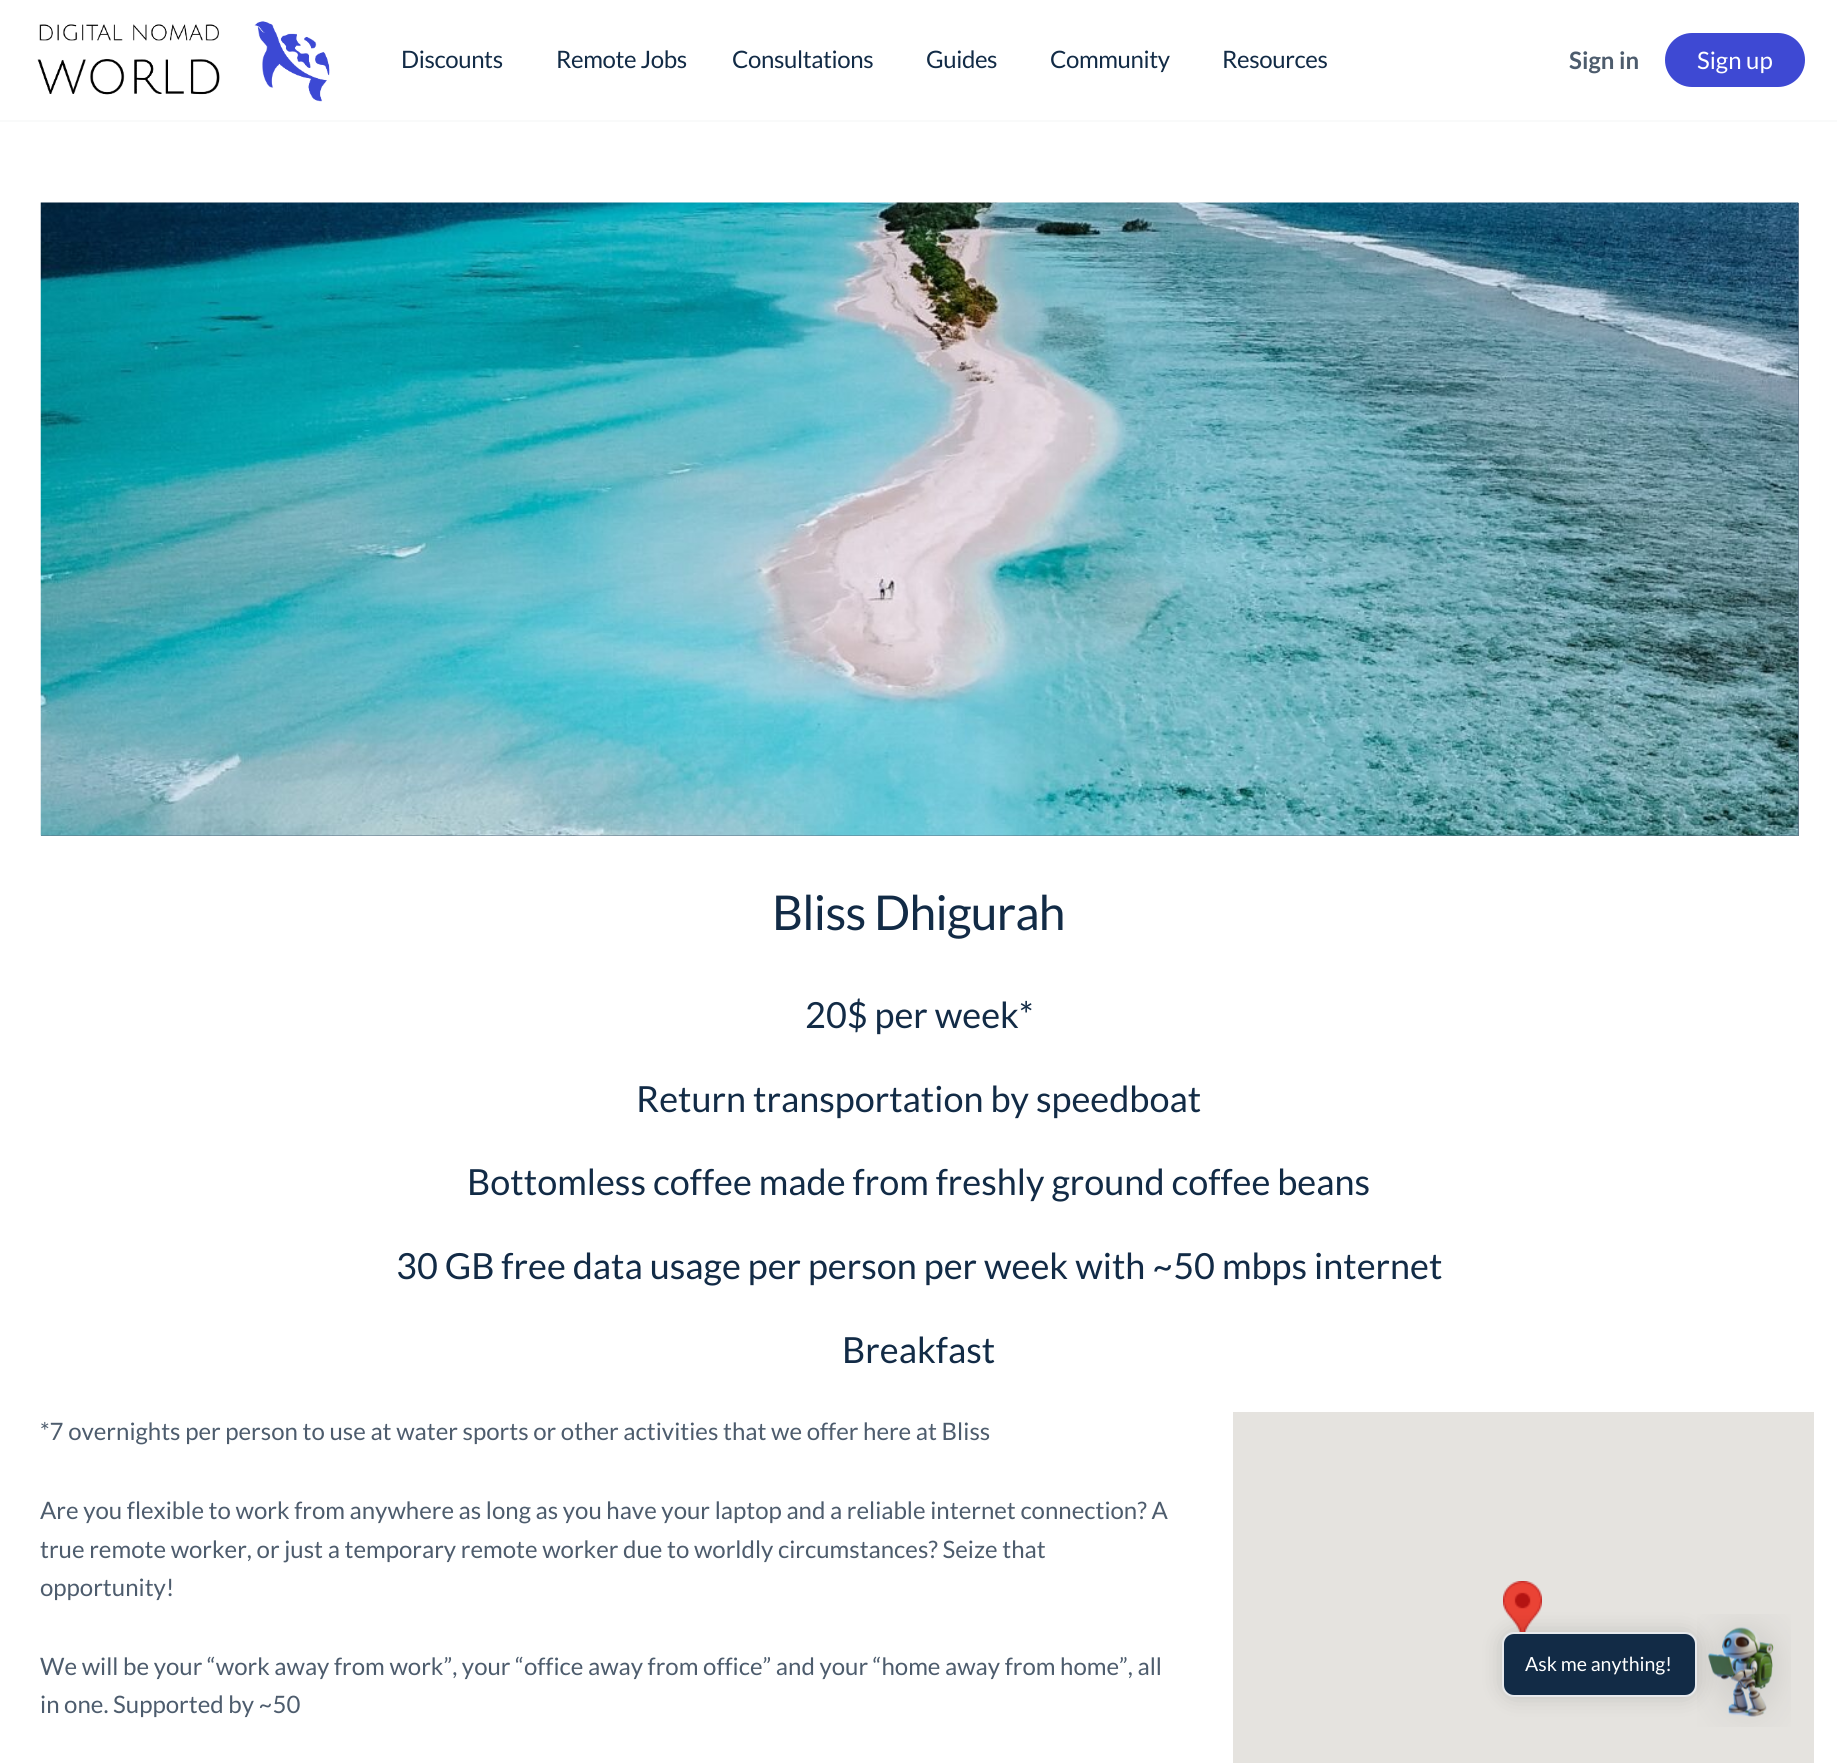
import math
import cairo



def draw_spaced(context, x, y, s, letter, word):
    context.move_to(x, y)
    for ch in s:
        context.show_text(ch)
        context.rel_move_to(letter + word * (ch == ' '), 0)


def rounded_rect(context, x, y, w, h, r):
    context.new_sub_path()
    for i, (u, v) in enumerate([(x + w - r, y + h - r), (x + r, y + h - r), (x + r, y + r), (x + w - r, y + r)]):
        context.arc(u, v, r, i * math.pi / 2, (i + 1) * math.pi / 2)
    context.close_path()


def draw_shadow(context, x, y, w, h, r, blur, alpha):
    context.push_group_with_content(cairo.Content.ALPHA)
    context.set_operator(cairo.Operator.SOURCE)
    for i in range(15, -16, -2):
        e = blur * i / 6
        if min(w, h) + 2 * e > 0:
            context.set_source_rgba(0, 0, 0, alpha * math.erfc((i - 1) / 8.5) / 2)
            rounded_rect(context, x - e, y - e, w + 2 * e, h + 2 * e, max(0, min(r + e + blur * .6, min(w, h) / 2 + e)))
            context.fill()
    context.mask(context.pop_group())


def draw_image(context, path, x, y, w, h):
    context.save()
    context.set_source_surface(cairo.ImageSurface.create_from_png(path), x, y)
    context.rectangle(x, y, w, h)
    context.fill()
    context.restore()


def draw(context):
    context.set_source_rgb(1, 1, 1)
    context.paint()
    context.set_source_rgba(139 / 255, 141 / 255, 157 / 255, 0.05)
    context.new_path()
    context.move_to(0, 120)
    context.line_to(0, 122)
    context.line_to(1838, 122)
    context.line_to(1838, 2)
    context.line_to(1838, 120)
    context.close_path()
    context.fill()
    draw_image(context, "images/1.png", 37, 21, 293, 81)
    context.set_source_rgb(62 / 255, 73 / 255, 211 / 255)
    rounded_rect(context, 1666, 34, 138, 52, 26)
    context.fill_preserve()
    context.stroke()
    context.set_source_rgb(96 / 255, 115 / 255, 135 / 255)
    context.rectangle(41, 203, 1758, 633)
    context.fill()
    draw_image(context, "images/2.png", 40, 202, 1759, 634)
    context.set_source_rgb(229 / 255, 227 / 255, 223 / 255)
    context.rectangle(1233, 1412, 581, 351)
    context.fill()
    draw_image(context, "images/3.png", 1503, 1581, 39, 51)
    draw_image(context, "images/4.png", 1697, 1614, 94, 113)
    context.set_source_rgb(0, 0, 0)
    draw_shadow(context, 1502, 1632, 195, 65, 12, 11, 0.15)
    context.set_source_rgb(18 / 255, 43 / 255, 70 / 255)
    rounded_rect(context, 1503, 1633, 193, 63, 11)
    context.fill_preserve()
    context.set_source_rgb(231 / 255, 233 / 255, 236 / 255)
    context.stroke()
    context.select_font_face("Lato")
    context.set_font_size(24)
    context.set_source_rgb(18 / 255, 43 / 255, 70 / 255)
    draw_spaced(context, 401, 68, "Discounts", -0.4, 0)
    draw_spaced(context, 556, 68, "Remote Jobs", -0.4, 0)
    draw_spaced(context, 732, 68, "Consultations", -0.4, 0)
    draw_spaced(context, 926, 68, "Guides", -0.4, 0)
    draw_spaced(context, 1050, 68, "Community", -0.4, 0)
    draw_spaced(context, 1222, 68, "Resources", -0.4, 0)
    context.select_font_face("Lato", cairo.FontSlant.NORMAL, cairo.FontWeight.BOLD)
    context.set_source_rgb(77 / 255, 92 / 255, 109 / 255)
    context.move_to(1569, 69)
    context.show_text("Sign in")
    context.select_font_face("Lato")
    context.set_source_rgb(1, 1, 1)
    context.move_to(1697, 69)
    context.show_text("Sign up")
    context.set_font_size(48)
    context.set_source_rgb(18 / 255, 43 / 255, 70 / 255)
    draw_spaced(context, 772, 930, "Bliss Dhigurah", -0.75, 0)
    context.set_font_size(36)
    context.move_to(805, 1028)
    context.show_text("20$ per week*")
    context.move_to(636, 1112)
    context.show_text("Return transportation by speedboat")
    context.move_to(467, 1195)
    context.show_text("Bottomless coffee made from freshly ground coffee beans")
    context.move_to(396, 1279)
    context.show_text("30 GB free data usage per person per week with ~50 mbps internet")
    context.move_to(842, 1363)
    context.show_text("Breakfast")
    context.set_font_size(24)
    context.set_source_rgb(77 / 255, 92 / 255, 109 / 255)
    context.move_to(40, 1440)
    context.show_text("*7 overnights per person to use at water sports or other activities that we offer here at Bliss")
    context.move_to(40, 1519)
    context.show_text("Are you flexible to work from anywhere as long as you have your laptop and a reliable internet connection? A")
    context.move_to(40, 1558)
    context.show_text("true remote worker, or just a temporary remote worker due to worldly circumstances? Seize that")
    context.move_to(40, 1596)
    context.show_text("opportunity!")
    context.move_to(40, 1675)
    context.show_text("We will be your “work away from work”, your “office away from office” and your “home away from home”, all")
    context.move_to(40, 1713)
    context.show_text("in one. Supported by ~50")
    context.set_font_size(19.5)
    context.set_source_rgb(1, 1, 1)
    context.move_to(1525, 1671)
    context.show_text("Ask me anything!")


surface = cairo.ImageSurface(cairo.Format.RGB24, 1837, 1763)
context = cairo.Context(surface)
options = cairo.FontOptions()
options.set_hint_metrics(cairo.HintMetrics.OFF)
options.set_hint_style(cairo.HintStyle.NONE)
context.set_font_options(options)
context.set_miter_limit(4)
draw(context)
surface.write_to_png("out.png")
